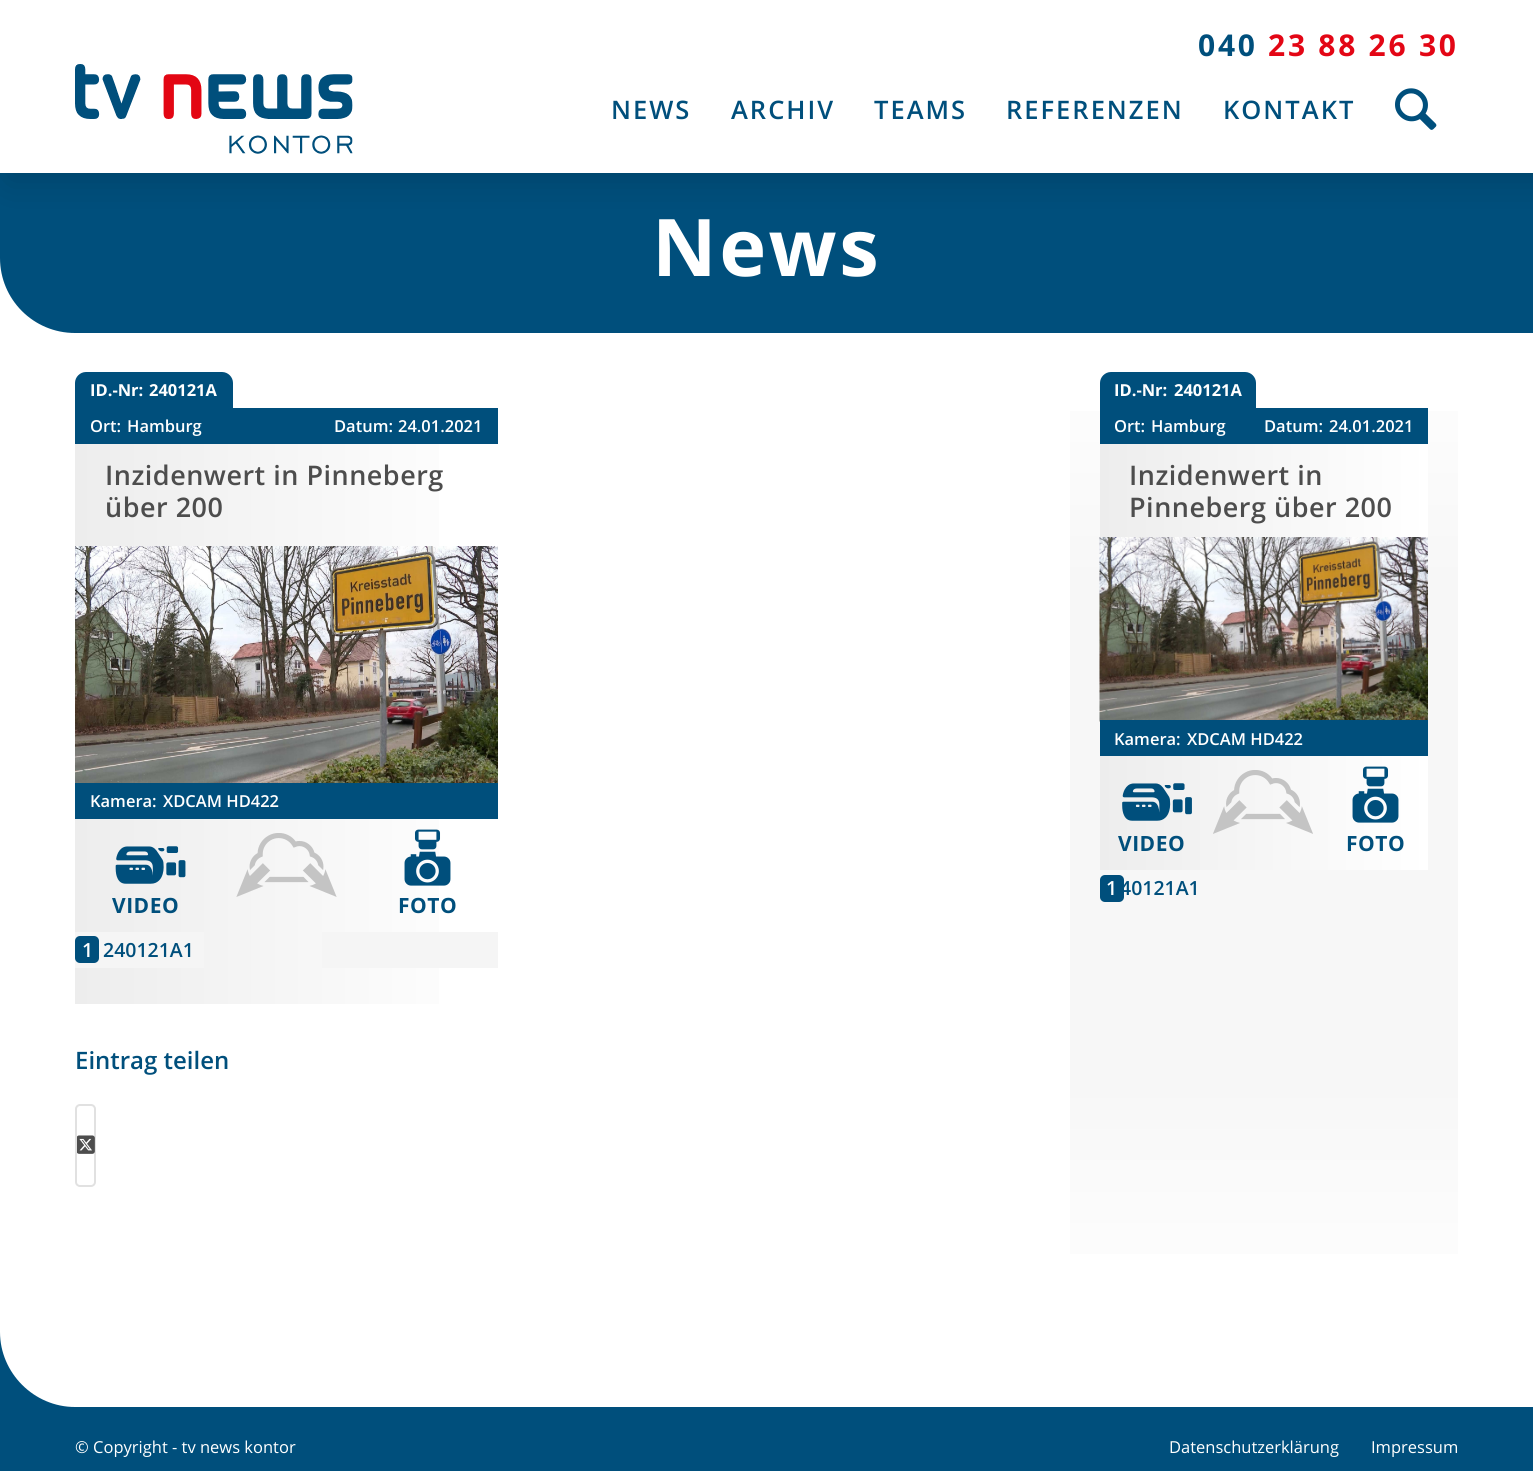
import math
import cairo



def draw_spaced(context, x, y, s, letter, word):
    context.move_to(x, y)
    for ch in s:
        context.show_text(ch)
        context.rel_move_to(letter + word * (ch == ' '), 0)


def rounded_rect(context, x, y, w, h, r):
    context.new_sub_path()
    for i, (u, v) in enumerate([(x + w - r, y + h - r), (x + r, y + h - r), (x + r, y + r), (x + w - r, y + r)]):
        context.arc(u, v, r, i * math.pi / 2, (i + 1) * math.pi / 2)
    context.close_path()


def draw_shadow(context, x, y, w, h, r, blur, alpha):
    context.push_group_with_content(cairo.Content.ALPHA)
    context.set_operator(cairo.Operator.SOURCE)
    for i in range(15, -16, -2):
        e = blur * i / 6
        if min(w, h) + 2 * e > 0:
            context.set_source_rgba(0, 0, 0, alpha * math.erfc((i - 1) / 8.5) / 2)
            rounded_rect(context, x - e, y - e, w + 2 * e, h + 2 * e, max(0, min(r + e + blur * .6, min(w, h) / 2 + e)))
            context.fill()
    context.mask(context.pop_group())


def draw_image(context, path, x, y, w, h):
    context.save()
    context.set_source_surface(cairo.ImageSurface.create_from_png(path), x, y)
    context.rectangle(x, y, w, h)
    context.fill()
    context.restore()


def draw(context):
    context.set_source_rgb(0, 79 / 255, 124 / 255)
    context.paint()
    context.set_source_rgb(1, 1, 1)
    context.rectangle(0, 258, 1533, 1149)
    context.fill()
    context.set_source_rgb(0, 79 / 255, 124 / 255)
    context.new_path()
    context.move_to(0, 170)
    context.line_to(1533, 170)
    context.line_to(1533, 333)
    context.line_to(75, 333)
    context.curve_to(33.5, 333, 0, 299.5, 0, 258)
    context.close_path()
    context.fill()
    context.set_source_rgb(1, 1, 1)
    context.rectangle(0, 45, 1533, 128)
    context.fill()
    context.save()
    context.set_fill_rule(cairo.FillRule.EVEN_ODD)
    context.new_path()
    context.move_to(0, 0)
    context.line_to(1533, 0)
    context.line_to(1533, 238)
    context.line_to(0, 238)
    context.close_path()
    context.move_to(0, 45)
    context.line_to(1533, 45)
    context.line_to(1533, 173)
    context.line_to(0, 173)
    context.close_path()
    context.clip()
    context.set_source_rgb(0, 0, 0)
    draw_shadow(context, 8, 53, 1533, 127, 0, 19, 0.15)
    context.restore()
    context.rectangle(0, 0, 1533, 45)
    context.fill()
    draw_image(context, "images/1.png", 75, 64, 278, 90)
    draw_image(context, "images/2.png", 1395, 88, 42, 42)
    gradient = cairo.LinearGradient(75, 706, 498, 706)
    gradient.add_color_stop_rgba(0, 237 / 255, 237 / 255, 237 / 255, 1)
    gradient.add_color_stop_rgba(1, 1, 1, 1, 1)
    context.set_source(gradient)
    context.rectangle(75, 444, 364, 560)
    context.fill()
    context.set_source_rgb(0, 79 / 255, 124 / 255)
    context.new_path()
    context.move_to(86, 372)
    context.line_to(222, 372)
    context.curve_to(228, 372, 233, 377, 233, 383)
    context.line_to(233, 408)
    context.line_to(75, 408)
    context.line_to(75, 383)
    context.curve_to(75, 377, 80, 372, 86, 372)
    context.close_path()
    context.fill()
    context.rectangle(75, 408, 423, 36)
    context.fill()
    draw_image(context, "images/3.png", 75, 546, 423, 237)
    context.rectangle(75, 783, 423, 36)
    context.fill()
    draw_image(context, "images/4.png", 115, 846, 71, 38)
    context.set_source_rgb(245 / 255, 245 / 255, 245 / 255)
    context.rectangle(75, 932, 129, 36)
    context.fill()
    context.set_source_rgb(0, 79 / 255, 124 / 255)
    rounded_rect(context, 75, 936, 24, 27, 5)
    context.fill()
    draw_image(context, "images/5.png", 236, 833, 101, 64)
    context.set_source_rgb(245 / 255, 245 / 255, 245 / 255)
    context.rectangle(322, 932, 176, 36)
    context.fill()
    draw_image(context, "images/6.png", 404, 829, 47, 57)
    rounded_rect(context, 76, 1105, 19, 81, 4)
    context.set_source_rgb(225 / 255, 225 / 255, 225 / 255)
    context.stroke()
    draw_image(context, "images/7.png", 77, 1135, 18, 19)
    gradient = cairo.LinearGradient(1264, 1332, 1264, 333)
    gradient.add_color_stop_rgba(0, 1, 1, 1, 1)
    gradient.add_color_stop_rgba(0.25, 247 / 255, 247 / 255, 247 / 255, 1)
    gradient.add_color_stop_rgba(0.75, 247 / 255, 247 / 255, 247 / 255, 1)
    gradient.add_color_stop_rgba(1, 1, 1, 1, 1)
    context.set_source(gradient)
    context.rectangle(1070, 411, 388, 843)
    context.fill()
    gradient = cairo.LinearGradient(1100, 657, 1428, 657)
    gradient.add_color_stop_rgba(0, 237 / 255, 237 / 255, 237 / 255, 1)
    gradient.add_color_stop_rgba(1, 1, 1, 1, 1)
    context.set_source(gradient)
    context.rectangle(1100, 444, 328, 426)
    context.fill()
    context.set_source_rgb(0, 79 / 255, 124 / 255)
    context.new_path()
    context.move_to(1111, 372)
    context.line_to(1245, 372)
    context.curve_to(1251, 372, 1256, 377, 1256, 383)
    context.line_to(1256, 408)
    context.line_to(1100, 408)
    context.line_to(1100, 383)
    context.curve_to(1100, 377, 1105, 372, 1111, 372)
    context.close_path()
    context.fill()
    context.rectangle(1100, 408, 328, 36)
    context.fill()
    draw_image(context, "images/8.png", 1099, 537, 329, 185)
    context.rectangle(1100, 720, 328, 36)
    context.fill()
    draw_image(context, "images/9.png", 1213, 770, 100, 64)
    draw_image(context, "images/10.png", 1122, 783, 70, 38)
    rounded_rect(context, 1100, 875, 24, 27, 5)
    context.fill()
    draw_image(context, "images/11.png", 1352, 766, 47, 57)
    context.new_path()
    context.move_to(75, 1407)
    context.curve_to(34, 1407, 0, 1373, 0, 1332)
    context.line_to(0, 1407)
    context.close_path()
    context.fill()
    context.select_font_face("Open Sans", cairo.FontSlant.NORMAL, cairo.FontWeight.BOLD)
    context.set_font_size(30)
    draw_spaced(context, 1198, 56, "040", 2.75, 0)
    context.set_source_rgb(227 / 255, 6 / 255, 21 / 255)
    draw_spaced(context, 1268, 56, "23 88 26 30", 2.75, 0)
    context.select_font_face("Open Sans SemiBold")
    context.set_font_size(25.5)
    context.set_source_rgb(0, 79 / 255, 124 / 255)
    draw_spaced(context, 611, 119, "NEWS", 2, 0)
    draw_spaced(context, 731, 119, "ARCHIV", 2, 0)
    draw_spaced(context, 874, 119, "TEAMS", 2, 0)
    draw_spaced(context, 1006, 119, "REFERENZEN", 2, 0)
    draw_spaced(context, 1223, 119, "KONTAKT", 2, 0)
    context.select_font_face("Open Sans", cairo.FontSlant.NORMAL, cairo.FontWeight.BOLD)
    context.set_font_size(79.5)
    context.set_source_rgb(1, 1, 1)
    draw_spaced(context, 652, 276, "News", 2.5, 0)
    context.set_font_size(16.5)
    context.move_to(90, 396)
    context.show_text("ID.-Nr:")
    context.move_to(149, 396)
    context.show_text("240121A")
    context.select_font_face("Open Sans SemiBold")
    context.move_to(90, 432)
    context.show_text("Ort:")
    context.move_to(127, 432)
    context.show_text("Hamburg")
    context.move_to(334, 432)
    context.show_text("Datum:")
    context.move_to(398, 432)
    context.show_text("24.01.2021")
    context.set_font_size(27)
    context.set_source_rgb(77 / 255, 77 / 255, 77 / 255)
    draw_spaced(context, 105, 485, "Inzidenwert in Pinneberg", 0.5, 0)
    draw_spaced(context, 105, 517, "über 200", 0.5, 0)
    context.set_font_size(16.5)
    context.set_source_rgb(1, 1, 1)
    context.move_to(90, 807)
    context.show_text("Kamera:")
    context.move_to(163, 807)
    context.show_text("XDCAM HD422")
    context.select_font_face("Open Sans", cairo.FontSlant.NORMAL, cairo.FontWeight.BOLD)
    context.set_font_size(21)
    context.set_source_rgb(0, 79 / 255, 124 / 255)
    draw_spaced(context, 112, 913, "VIDEO", 0.5, 0)
    context.select_font_face("Open Sans SemiBold")
    context.set_font_size(19.5)
    context.set_source_rgb(1, 1, 1)
    context.move_to(82, 957)
    context.show_text("1")
    context.set_source_rgb(0, 79 / 255, 124 / 255)
    context.move_to(103, 957)
    context.show_text("240121A1")
    context.select_font_face("Open Sans", cairo.FontSlant.NORMAL, cairo.FontWeight.BOLD)
    context.set_font_size(21)
    draw_spaced(context, 398, 913, "FOTO", 0.5, 0)
    context.select_font_face("Open Sans SemiBold")
    context.set_font_size(24)
    context.move_to(75, 1069)
    context.show_text("Eintrag teilen")
    context.select_font_face("Open Sans", cairo.FontSlant.NORMAL, cairo.FontWeight.BOLD)
    context.set_font_size(16.5)
    context.set_source_rgb(1, 1, 1)
    context.move_to(1114, 396)
    context.show_text("ID.-Nr:")
    context.move_to(1174, 396)
    context.show_text("240121A")
    context.select_font_face("Open Sans SemiBold")
    context.move_to(1114, 432)
    context.show_text("Ort:")
    context.move_to(1151, 432)
    context.show_text("Hamburg")
    context.move_to(1264, 432)
    context.show_text("Datum:")
    context.move_to(1329, 432)
    context.show_text("24.01.2021")
    context.set_font_size(27)
    context.set_source_rgb(77 / 255, 77 / 255, 77 / 255)
    draw_spaced(context, 1129, 485, "Inzidenwert in", 0.5, 0)
    draw_spaced(context, 1129, 517, "Pinneberg über 200", 0.5, 0)
    context.set_font_size(16.5)
    context.set_source_rgb(1, 1, 1)
    context.move_to(1114, 745)
    context.show_text("Kamera:")
    context.move_to(1187, 745)
    context.show_text("XDCAM HD422")
    context.select_font_face("Open Sans", cairo.FontSlant.NORMAL, cairo.FontWeight.BOLD)
    context.set_font_size(21)
    context.set_source_rgb(0, 79 / 255, 124 / 255)
    draw_spaced(context, 1118, 851, "VIDEO", 0.5, 0)
    context.select_font_face("Open Sans SemiBold")
    context.set_font_size(19.5)
    context.set_source_rgb(1, 1, 1)
    context.move_to(1106, 895)
    context.show_text("1")
    context.set_source_rgb(0, 79 / 255, 124 / 255)
    context.move_to(1120, 895)
    context.show_text("40121A1")
    context.select_font_face("Open Sans", cairo.FontSlant.NORMAL, cairo.FontWeight.BOLD)
    context.set_font_size(21)
    draw_spaced(context, 1346, 851, "FOTO", 0.5, 0)
    context.select_font_face("Open Sans")
    context.set_font_size(16.5)
    context.set_source_rgb(1, 1, 1)
    context.move_to(75, 1453)
    context.show_text("© Copyright - tv news kontor")
    context.move_to(1169, 1453)
    context.show_text("Datenschutzerklärung")
    context.move_to(1371, 1453)
    context.show_text("Impressum")


surface = cairo.ImageSurface(cairo.Format.RGB24, 1533, 1471)
context = cairo.Context(surface)
options = cairo.FontOptions()
options.set_hint_metrics(cairo.HintMetrics.OFF)
options.set_hint_style(cairo.HintStyle.NONE)
context.set_font_options(options)
context.set_miter_limit(4)
draw(context)
surface.write_to_png("out.png")
